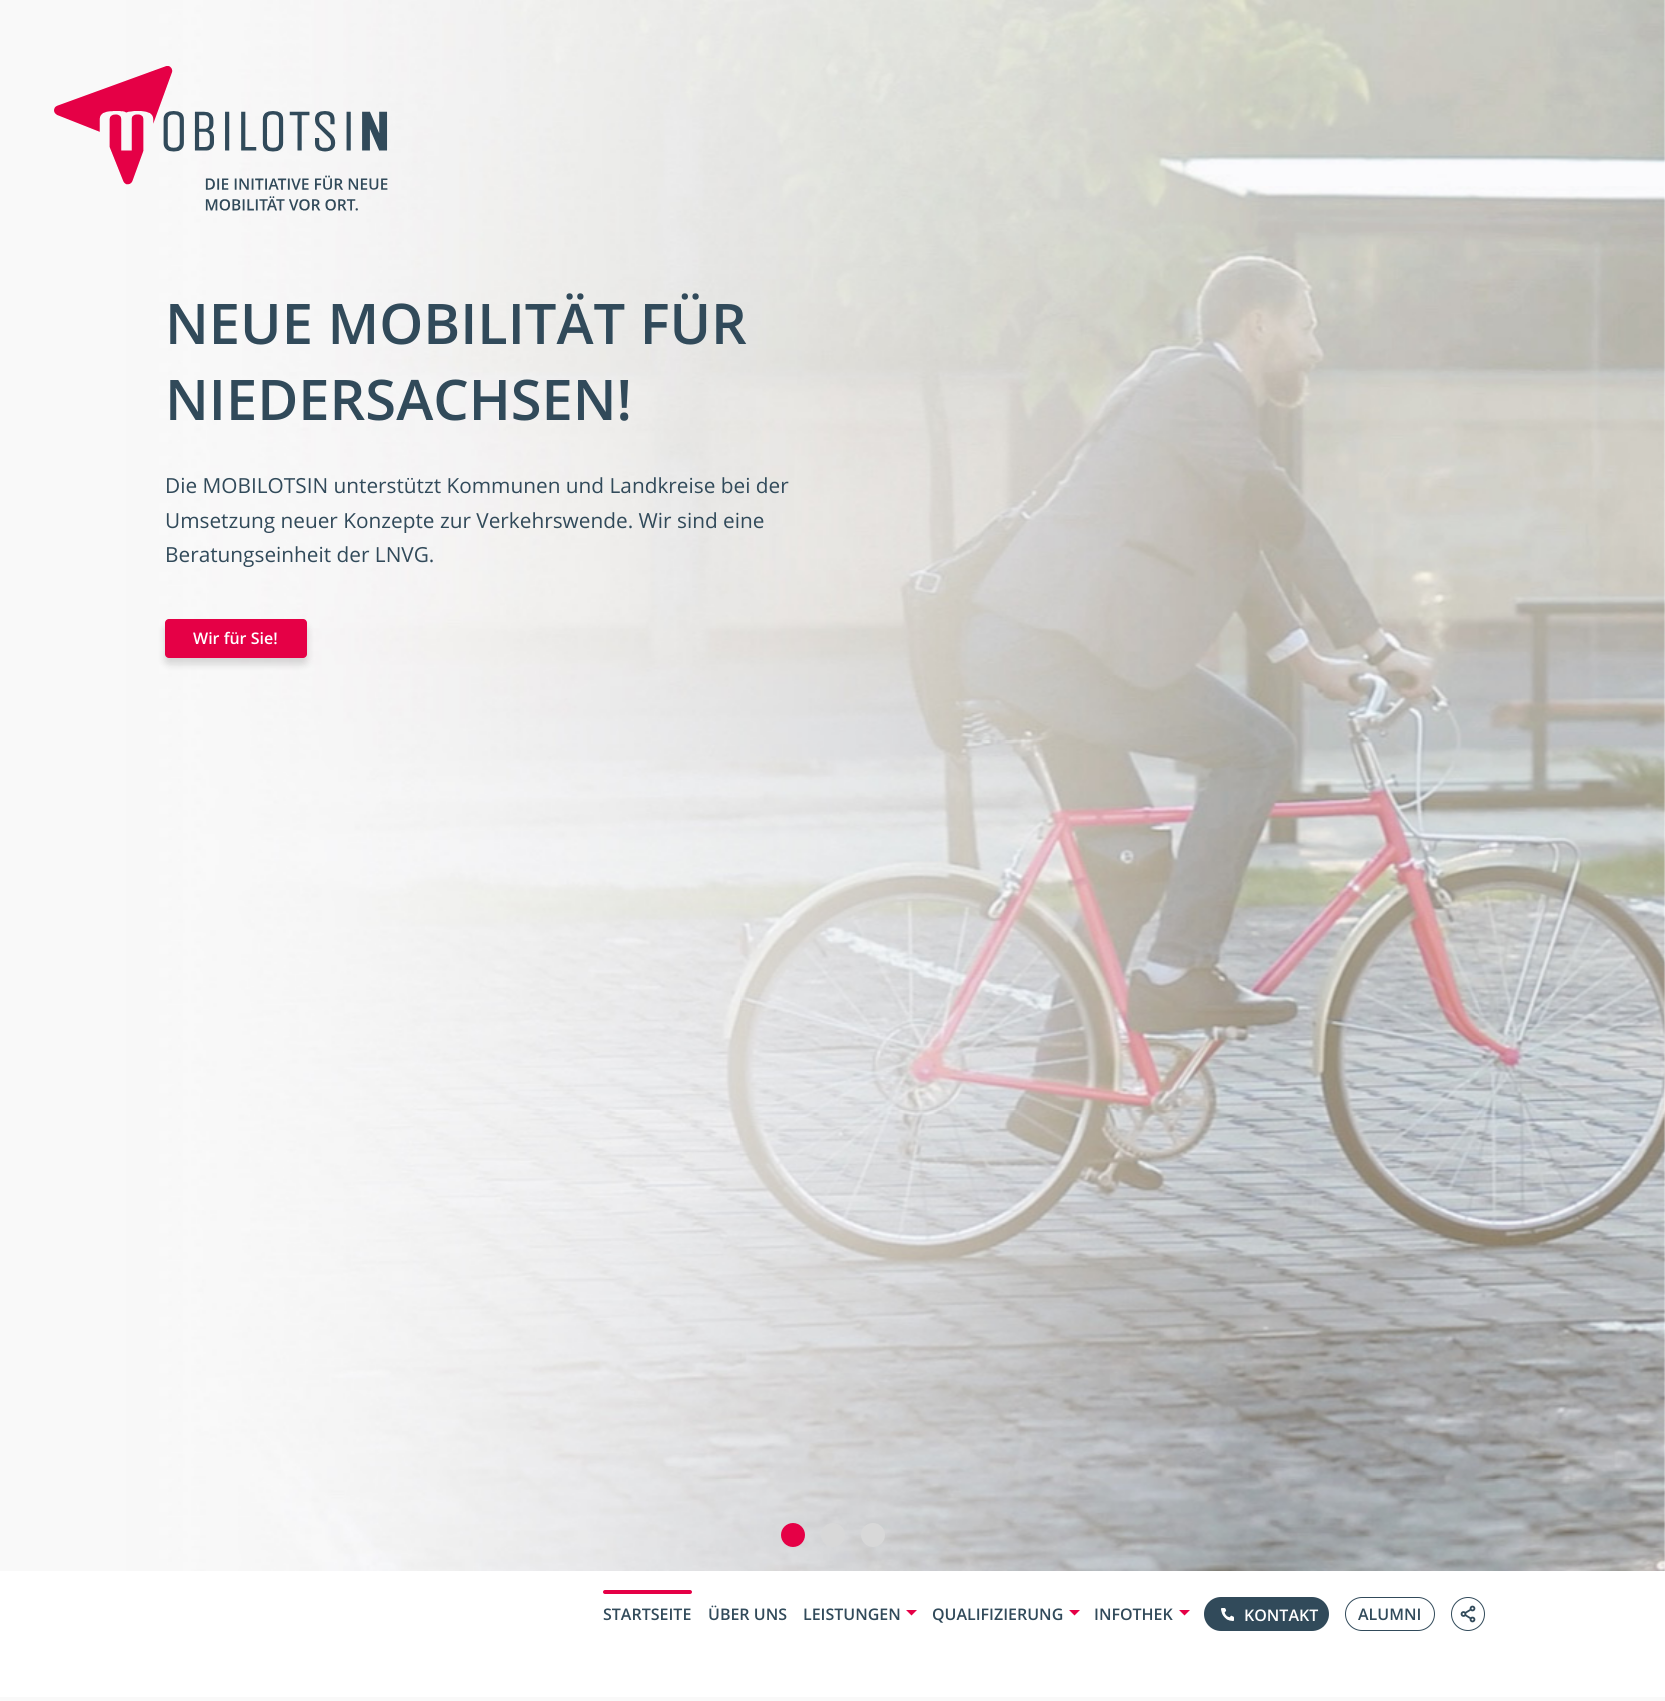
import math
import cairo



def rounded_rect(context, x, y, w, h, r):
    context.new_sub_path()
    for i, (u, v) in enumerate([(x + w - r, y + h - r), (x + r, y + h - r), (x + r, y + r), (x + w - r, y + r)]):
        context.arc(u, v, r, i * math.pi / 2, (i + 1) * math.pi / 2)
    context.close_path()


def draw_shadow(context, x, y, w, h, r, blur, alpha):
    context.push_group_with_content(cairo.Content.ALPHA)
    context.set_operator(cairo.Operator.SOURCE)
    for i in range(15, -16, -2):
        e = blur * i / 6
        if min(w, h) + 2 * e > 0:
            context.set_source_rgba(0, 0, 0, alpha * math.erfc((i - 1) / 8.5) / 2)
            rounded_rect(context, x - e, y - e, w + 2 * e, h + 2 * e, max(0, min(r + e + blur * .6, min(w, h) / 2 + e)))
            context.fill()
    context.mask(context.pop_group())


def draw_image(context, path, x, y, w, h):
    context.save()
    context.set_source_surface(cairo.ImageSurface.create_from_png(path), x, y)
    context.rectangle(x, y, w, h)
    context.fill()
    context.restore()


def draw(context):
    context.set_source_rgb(1, 1, 1)
    context.paint()
    draw_image(context, "images/1.png", 0, 0, 1665, 1571)
    context.set_source_rgb(229 / 255, 0, 70 / 255)
    context.arc(793, 1535, 12, 0, 2 * math.pi)
    context.fill()
    context.set_source_rgb(216 / 255, 216 / 255, 216 / 255)
    context.arc(833, 1535, 12, 0, 2 * math.pi)
    context.fill()
    context.arc(873, 1535, 12, 0, 2 * math.pi)
    context.fill()
    draw_image(context, "images/2.png", 54, 66, 334, 145)
    context.set_source_rgb(0, 0, 0)
    draw_shadow(context, 165, 625, 142, 39, 4, 4, 0.15)
    context.set_source_rgb(229 / 255, 0, 70 / 255)
    rounded_rect(context, 165, 619, 142, 39, 4)
    context.fill()
    rounded_rect(context, 603, 1590, 89, 4, 2)
    context.fill()
    context.set_fill_rule(cairo.FillRule.EVEN_ODD)
    context.new_path()
    context.move_to(917, 1610)
    context.line_to(911.5, 1615.5)
    context.line_to(906, 1610)
    context.close_path()
    context.fill()
    context.new_path()
    context.move_to(1080, 1610)
    context.line_to(1074.5, 1615.5)
    context.line_to(1069, 1610)
    context.close_path()
    context.fill()
    context.new_path()
    context.move_to(1190, 1610)
    context.line_to(1184.5, 1615.5)
    context.line_to(1179, 1610)
    context.close_path()
    context.fill()
    context.set_source_rgb(49 / 255, 74 / 255, 90 / 255)
    rounded_rect(context, 1204, 1597, 125, 34, 17)
    context.fill()
    draw_image(context, "images/3.png", 1221, 1608, 13, 13)
    rounded_rect(context, 1345.5, 1597.5, 89, 33, 16.5)
    context.set_line_width(1)
    context.stroke()
    context.arc(1468, 1614, 16.5, 0, 2 * math.pi)
    context.stroke()
    draw_image(context, "images/4.png", 1460, 1605, 16, 18)
    context.set_source_rgb(249 / 255, 249 / 255, 249 / 255)
    context.rectangle(0, 1697, 1665, 4)
    context.fill()
    context.select_font_face("Open Sans SemiBold")
    context.set_font_size(56)
    context.set_source_rgb(49 / 255, 74 / 255, 90 / 255)
    context.move_to(165, 344)
    context.show_text("NEUE MOBILITÄT FÜR")
    context.move_to(165, 420)
    context.show_text("NIEDERSACHSEN!")
    context.select_font_face("Open Sans")
    context.set_font_size(20.8)
    context.move_to(165, 493)
    context.show_text("Die MOBILOTSIN unterstützt Kommunen und Landkreise bei der")
    context.move_to(165, 528)
    context.show_text("Umsetzung neuer Konzepte zur Verkehrswende. Wir sind eine")
    context.move_to(165, 562)
    context.show_text("Beratungseinheit der LNVG.")
    context.select_font_face("Open Sans SemiBold")
    context.set_font_size(16)
    context.set_source_rgb(1, 1, 1)
    context.move_to(193, 644)
    context.show_text("Wir für Sie!")
    context.set_source_rgb(49 / 255, 74 / 255, 90 / 255)
    context.move_to(603, 1620)
    context.show_text("STARTSEITE")
    context.move_to(708, 1620)
    context.show_text("ÜBER UNS")
    context.move_to(803, 1620)
    context.show_text("LEISTUNGEN")
    context.move_to(932, 1620)
    context.show_text("QUALIFIZIERUNG")
    context.move_to(1094, 1620)
    context.show_text("INFOTHEK")
    context.set_source_rgb(1, 1, 1)
    context.move_to(1244, 1621)
    context.show_text("KONTAKT")
    context.set_source_rgb(49 / 255, 74 / 255, 90 / 255)
    context.move_to(1358, 1620)
    context.show_text("ALUMNI")


surface = cairo.ImageSurface(cairo.Format.RGB24, 1665, 1701)
context = cairo.Context(surface)
options = cairo.FontOptions()
options.set_hint_metrics(cairo.HintMetrics.OFF)
options.set_hint_style(cairo.HintStyle.NONE)
context.set_font_options(options)
context.set_miter_limit(4)
draw(context)
surface.write_to_png("out.png")
